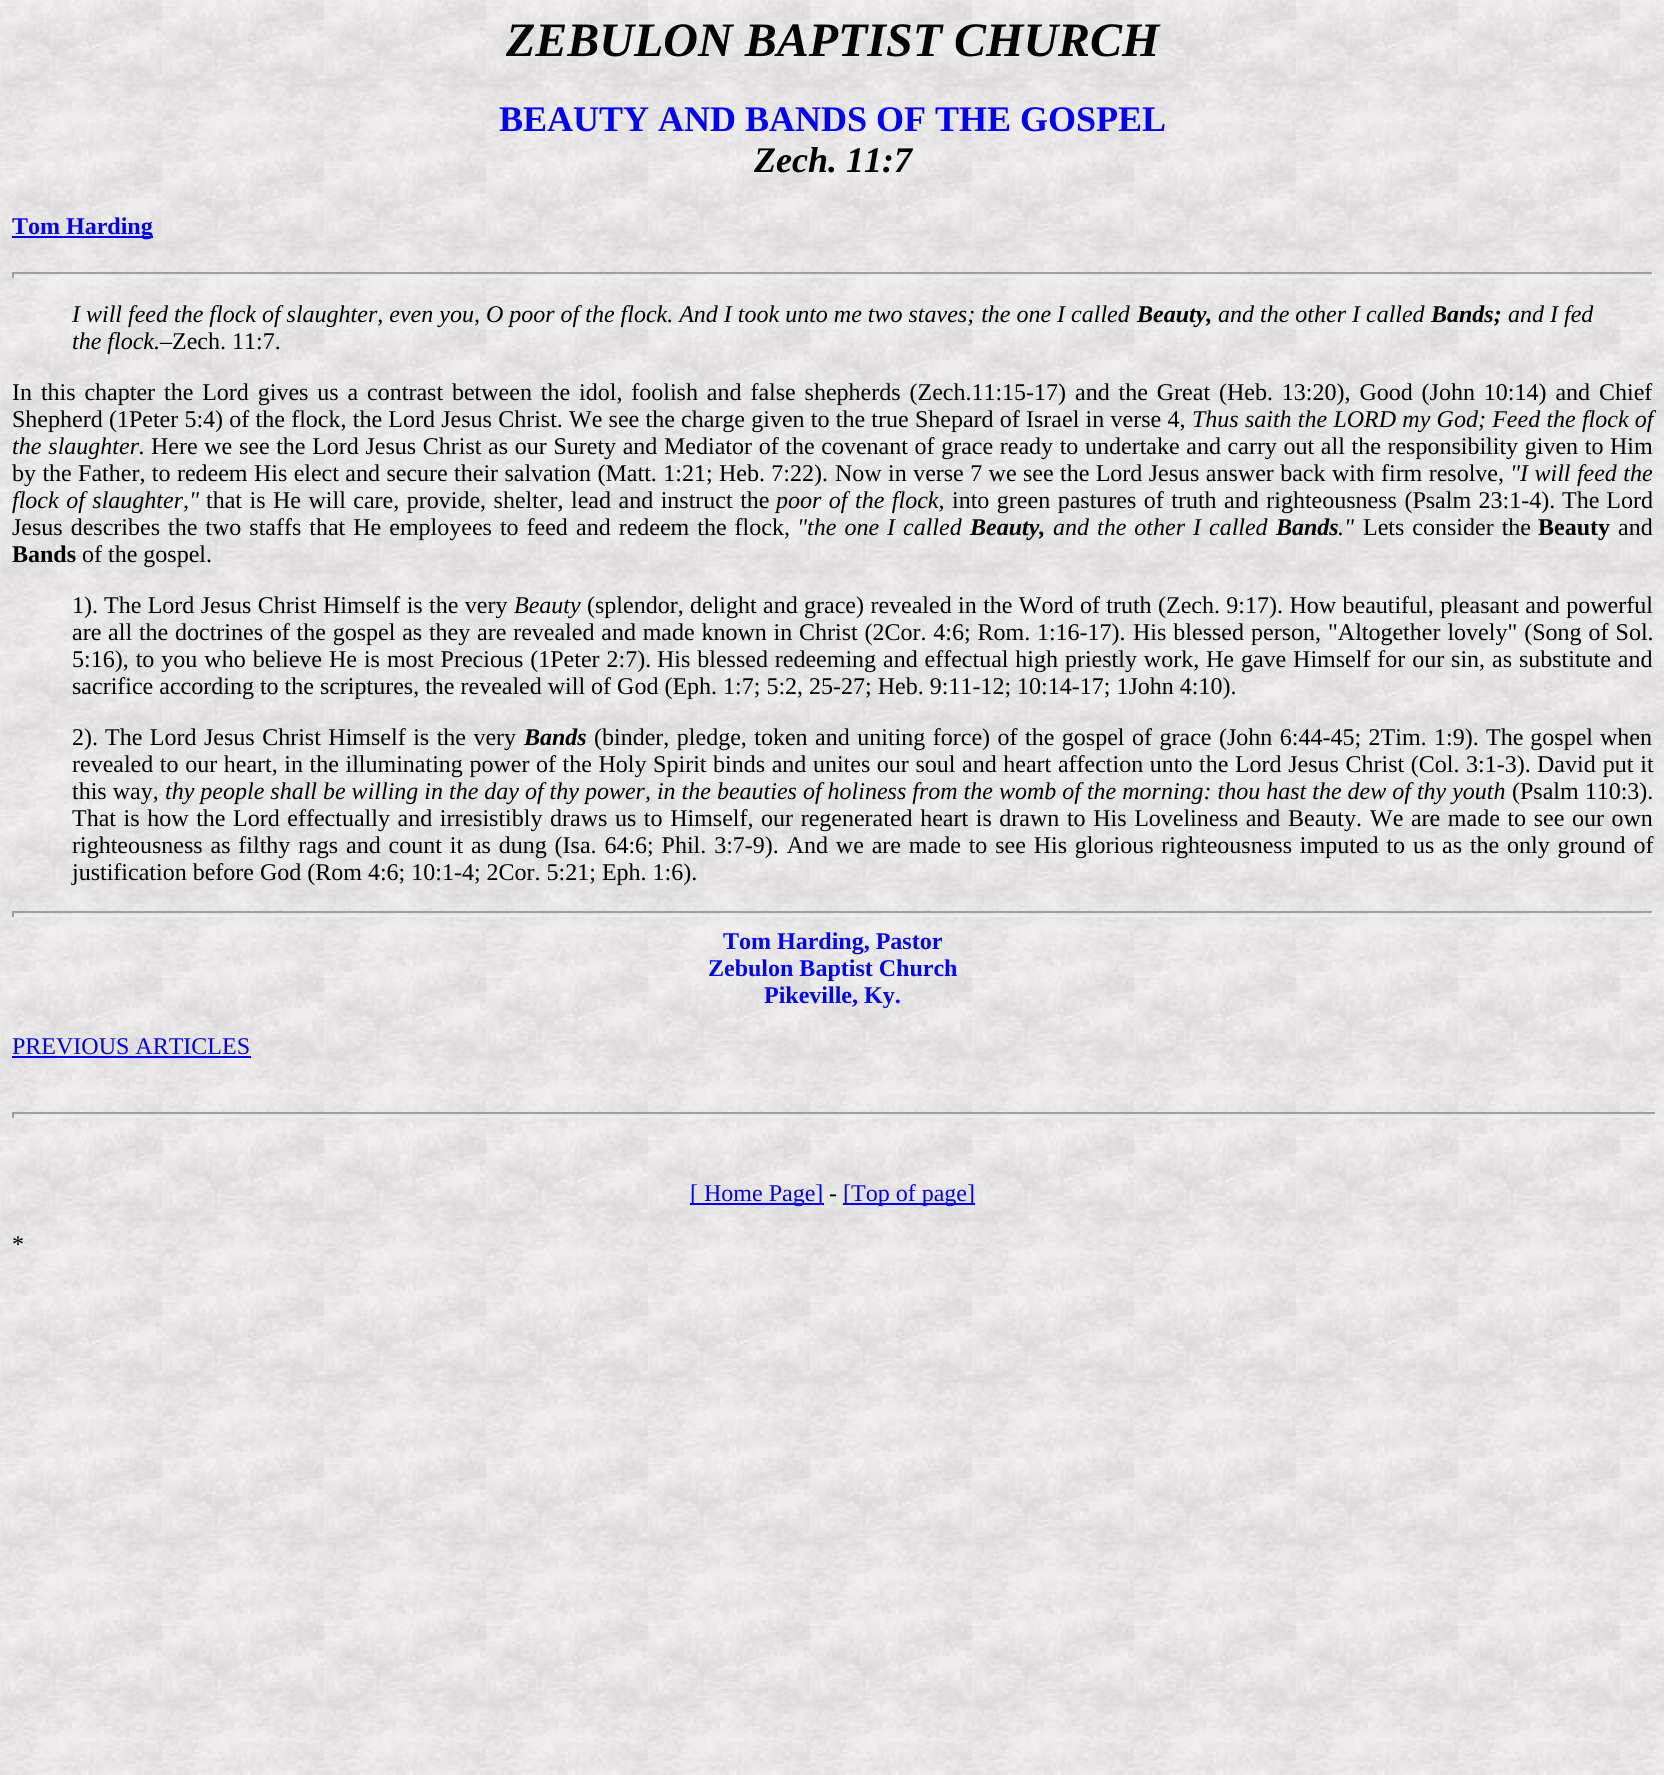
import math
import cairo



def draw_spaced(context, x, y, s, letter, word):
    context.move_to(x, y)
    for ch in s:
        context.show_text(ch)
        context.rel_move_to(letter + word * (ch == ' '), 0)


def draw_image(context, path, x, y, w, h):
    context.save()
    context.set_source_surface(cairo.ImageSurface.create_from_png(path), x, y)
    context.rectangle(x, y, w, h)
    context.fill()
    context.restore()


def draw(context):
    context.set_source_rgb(1, 1, 1)
    context.paint()
    draw_image(context, "images/1.png", 0, 0, 1664, 1775)
    context.set_source_rgb(0, 0, 238 / 255)
    context.rectangle(12, 236, 141, 2)
    context.fill()
    context.set_source_rgb(159 / 255, 159 / 255, 159 / 255)
    context.rectangle(12, 272, 1641, 2)
    context.fill()
    context.set_source_rgb(238 / 255, 238 / 255, 238 / 255)
    context.rectangle(1652, 272, 2, 6)
    context.fill()
    context.rectangle(12, 276, 1641, 2)
    context.fill()
    context.set_source_rgb(159 / 255, 159 / 255, 159 / 255)
    context.rectangle(12, 272, 2, 6)
    context.fill()
    context.rectangle(12, 911, 1641, 2)
    context.fill()
    context.set_source_rgb(238 / 255, 238 / 255, 238 / 255)
    context.rectangle(1652, 911, 2, 6)
    context.fill()
    context.rectangle(12, 915, 1641, 2)
    context.fill()
    context.set_source_rgb(159 / 255, 159 / 255, 159 / 255)
    context.rectangle(12, 911, 2, 6)
    context.fill()
    context.set_source_rgb(0, 0, 238 / 255)
    context.rectangle(12, 1056, 239, 2)
    context.fill()
    context.set_source_rgb(159 / 255, 159 / 255, 159 / 255)
    context.rectangle(12, 1112, 1644, 2)
    context.fill()
    context.set_source_rgb(238 / 255, 238 / 255, 238 / 255)
    context.rectangle(1655, 1112, 2, 6)
    context.fill()
    context.rectangle(12, 1116, 1644, 2)
    context.fill()
    context.set_source_rgb(159 / 255, 159 / 255, 159 / 255)
    context.rectangle(12, 1112, 2, 6)
    context.fill()
    context.set_source_rgb(0, 0, 238 / 255)
    context.rectangle(690, 1203, 134, 2)
    context.fill()
    context.rectangle(843, 1203, 132, 2)
    context.fill()
    context.select_font_face("Liberation Serif", cairo.FontSlant.ITALIC, cairo.FontWeight.BOLD)
    context.set_font_size(48)
    context.set_source_rgb(0, 0, 0)
    context.move_to(506, 56)
    context.show_text("ZEBULON BAPTIST CHURCH")
    context.select_font_face("Liberation Serif", cairo.FontSlant.NORMAL, cairo.FontWeight.BOLD)
    context.set_font_size(36)
    context.set_source_rgb(0, 0, 1)
    context.move_to(499, 131)
    context.show_text("BEAUTY AND BANDS OF THE GOSPEL")
    context.select_font_face("Liberation Serif", cairo.FontSlant.ITALIC, cairo.FontWeight.BOLD)
    context.set_source_rgb(0, 0, 0)
    context.move_to(754, 172)
    context.show_text("Zech. 11:7")
    context.select_font_face("Liberation Serif", cairo.FontSlant.NORMAL, cairo.FontWeight.BOLD)
    context.set_font_size(24)
    context.set_source_rgb(0, 0, 238 / 255)
    context.move_to(12, 234)
    context.show_text("Tom Harding")
    context.select_font_face("Liberation Serif", cairo.FontSlant.ITALIC)
    context.set_source_rgb(0, 0, 0)
    context.move_to(72, 322)
    context.show_text("I will feed the flock of slaughter, even you, O poor of the flock. And I took unto me two staves; the one I called")
    context.select_font_face("Liberation Serif", cairo.FontSlant.ITALIC, cairo.FontWeight.BOLD)
    context.move_to(1137, 322)
    context.show_text("Beauty,")
    context.select_font_face("Liberation Serif", cairo.FontSlant.ITALIC)
    context.move_to(1218, 322)
    context.show_text("and the other I called")
    context.select_font_face("Liberation Serif", cairo.FontSlant.ITALIC, cairo.FontWeight.BOLD)
    context.move_to(1431, 322)
    context.show_text("Bands;")
    context.select_font_face("Liberation Serif", cairo.FontSlant.ITALIC)
    context.move_to(1508, 322)
    context.show_text("and I fed")
    context.move_to(72, 349)
    context.show_text("the flock.")
    context.select_font_face("Liberation Serif")
    context.move_to(160, 349)
    context.show_text("–Zech. 11:7.")
    draw_spaced(context, 12, 400, "In this chapter the Lord gives us a contrast between the idol, foolish and false shepherds (Zech.11:15-17) and the Great (Heb. 13:20), Good (John 10:14) and Chief", 0, 2.9)
    draw_spaced(context, 12, 427, "Shepherd (1Peter 5:4) of the flock, the Lord Jesus Christ. We see the charge given to the true Shepard of Israel in verse 4,", 0, 0.25)
    context.select_font_face("Liberation Serif", cairo.FontSlant.ITALIC)
    draw_spaced(context, 1192, 427, "Thus saith the LORD my God; Feed the flock of", 0, 0.25)
    draw_spaced(context, 12, 454, "the slaughter.", 0, 1)
    context.select_font_face("Liberation Serif")
    draw_spaced(context, 151, 454, "Here we see the Lord Jesus Christ as our Surety and Mediator of the covenant of grace ready to undertake and carry out all the responsibility given to Him", 0, 0.65)
    draw_spaced(context, 12, 481, "by the Father, to redeem His elect and secure their salvation (Matt. 1:21; Heb. 7:22).", 0, 0.4)
    draw_spaced(context, 835, 481, "Now in verse 7 we see the Lord Jesus answer back with firm resolve,", 0, 0.4)
    context.select_font_face("Liberation Serif", cairo.FontSlant.ITALIC)
    draw_spaced(context, 1510, 481, "\"I will feed the", 0, 0.4)
    draw_spaced(context, 12, 508, "flock of slaughter,\"", 0, 1.5)
    context.select_font_face("Liberation Serif")
    draw_spaced(context, 206, 508, "that is He will care, provide, shelter, lead and instruct the", 0, 1.5)
    context.select_font_face("Liberation Serif", cairo.FontSlant.ITALIC)
    draw_spaced(context, 776, 508, "poor of the flock,", 0, 1.5)
    context.select_font_face("Liberation Serif")
    draw_spaced(context, 952, 508, "into green pastures of truth and righteousness (Psalm 23:1-4).", 0, 1.5)
    draw_spaced(context, 1562, 508, "The Lord", 0, 1)
    draw_spaced(context, 12, 535, "Jesus describes the two staffs that He employees to feed", 0, 2)
    draw_spaced(context, 576, 535, "and redeem the flock,", 0, 2)
    context.select_font_face("Liberation Serif", cairo.FontSlant.ITALIC)
    draw_spaced(context, 797, 535, "\"the one I called", 0, 2)
    context.select_font_face("Liberation Serif", cairo.FontSlant.ITALIC, cairo.FontWeight.BOLD)
    context.move_to(970, 535)
    context.show_text("Beauty,")
    context.select_font_face("Liberation Serif", cairo.FontSlant.ITALIC)
    draw_spaced(context, 1053, 535, "and the other I called", 0, 2)
    context.select_font_face("Liberation Serif", cairo.FontSlant.ITALIC, cairo.FontWeight.BOLD)
    context.move_to(1276, 535)
    context.show_text("Bands")
    context.select_font_face("Liberation Serif", cairo.FontSlant.ITALIC)
    context.move_to(1338, 535)
    context.show_text(".\"")
    context.select_font_face("Liberation Serif")
    draw_spaced(context, 1363, 535, "Lets consider the", 0, 2)
    context.select_font_face("Liberation Serif", cairo.FontSlant.NORMAL, cairo.FontWeight.BOLD)
    context.move_to(1538, 535)
    context.show_text("Beauty")
    context.select_font_face("Liberation Serif")
    context.move_to(1618, 535)
    context.show_text("and")
    context.select_font_face("Liberation Serif", cairo.FontSlant.NORMAL, cairo.FontWeight.BOLD)
    context.move_to(12, 562)
    context.show_text("Bands")
    context.select_font_face("Liberation Serif")
    context.move_to(82, 562)
    context.show_text("of the gospel.")
    context.move_to(72, 613)
    context.show_text("1).")
    draw_spaced(context, 104, 613, "The Lord Jesus Christ Himself is the very", 0, 0.4)
    context.select_font_face("Liberation Serif", cairo.FontSlant.ITALIC)
    context.move_to(514, 613)
    context.show_text("Beauty")
    context.select_font_face("Liberation Serif")
    draw_spaced(context, 587, 613, "(splendor, delight", 0, 0.4)
    draw_spaced(context, 763, 613, "and grace) revealed in the Word of truth (Zech. 9:17). How beautiful, pleasant and powerful", 0, 0.4)
    draw_spaced(context, 72, 640, "are all the doctrines of the gospel as they are revealed and made known in Christ (2Cor. 4:6; Rom. 1:16-17).", 0, 0.8)
    draw_spaced(context, 1133, 640, "His blessed person,", 0, 1)
    draw_spaced(context, 1328, 640, "\"Altogether lovely\" (Song of Sol.", 0, 1)
    draw_spaced(context, 72, 667, "5:16), to you who believe He is most Precious (1Peter 2:7).", 0, 1)
    draw_spaced(context, 657, 667, "His blessed redeeming and effectual high priestly work, He gave Himself for our sin, as substitute and", 0, 0.9)
    context.move_to(72, 694)
    context.show_text("sacrifice according to the scriptures, the revealed will of God (Eph. 1:7; 5:2, 25-27; Heb. 9:11-12; 10:14-17; 1John 4:10).")
    context.move_to(72, 745)
    context.show_text("2).")
    draw_spaced(context, 105, 745, "The Lord Jesus Christ Himself is the very", 0, 1.5)
    context.select_font_face("Liberation Serif", cairo.FontSlant.ITALIC, cairo.FontWeight.BOLD)
    context.move_to(524, 745)
    context.show_text("Bands")
    context.select_font_face("Liberation Serif")
    draw_spaced(context, 594, 745, "(binder, pledge, token and uniting force) of the gospel of grace (John 6:44-45; 2Tim. 1:9).", 0, 1.5)
    draw_spaced(context, 1486, 745, "The gospel when", 0, 1)
    draw_spaced(context, 72, 772, "revealed to our heart, in the illuminating power of the Holy Spirit binds and unites our soul and heart affection unto the Lord Jesus Christ (Col. 3:1-3).", 0, 0.6)
    draw_spaced(context, 1537, 772, "David put it", 0, 1)
    context.move_to(72, 799)
    context.show_text("this way,")
    context.select_font_face("Liberation Serif", cairo.FontSlant.ITALIC)
    context.move_to(165, 799)
    context.show_text("thy people shall be willing in the day of thy power, in the beauties of holiness from the womb of the morning: thou hast the dew of thy youth")
    context.select_font_face("Liberation Serif")
    context.move_to(1512, 799)
    context.show_text("(Psalm 110:3).")
    draw_spaced(context, 72, 826, "That is how the Lord effectually and irresistibly draws us to Himself, our regenerated heart is drawn to His Loveliness and Beauty.", 0, 1.6)
    draw_spaced(context, 1370, 826, "We are made to see our own", 0, 1.6)
    draw_spaced(context, 72, 853, "righteousness as filthy rags and count it as dung (Isa. 64:6; Phil. 3:7-9). And we are made to see His glorious righteousness imputed to us as the only ground of", 0, 1.85)
    context.move_to(72, 880)
    context.show_text("justification before God (Rom 4:6; 10:1-4; 2Cor. 5:21; Eph. 1:6).")
    context.select_font_face("Liberation Serif", cairo.FontSlant.NORMAL, cairo.FontWeight.BOLD)
    context.set_source_rgb(0, 0, 1)
    context.move_to(723, 949)
    context.show_text("Tom Harding, Pastor")
    context.move_to(708, 976)
    context.show_text("Zebulon Baptist Church")
    context.move_to(764, 1003)
    context.show_text("Pikeville, Ky.")
    context.select_font_face("Liberation Serif")
    context.set_source_rgb(0, 0, 238 / 255)
    context.move_to(12, 1054)
    context.show_text("PREVIOUS ARTICLES")
    context.move_to(690, 1201)
    context.show_text("[ Home Page]")
    context.set_source_rgb(0, 0, 0)
    context.move_to(829, 1201)
    context.show_text("-")
    context.set_source_rgb(0, 0, 238 / 255)
    context.move_to(843, 1201)
    context.show_text("[Top of page]")
    context.set_source_rgb(0, 0, 0)
    context.move_to(12, 1252)
    context.show_text("*")


surface = cairo.ImageSurface(cairo.Format.RGB24, 1664, 1775)
context = cairo.Context(surface)
options = cairo.FontOptions()
options.set_hint_metrics(cairo.HintMetrics.OFF)
options.set_hint_style(cairo.HintStyle.NONE)
context.set_font_options(options)
context.set_miter_limit(4)
draw(context)
surface.write_to_png("out.png")
